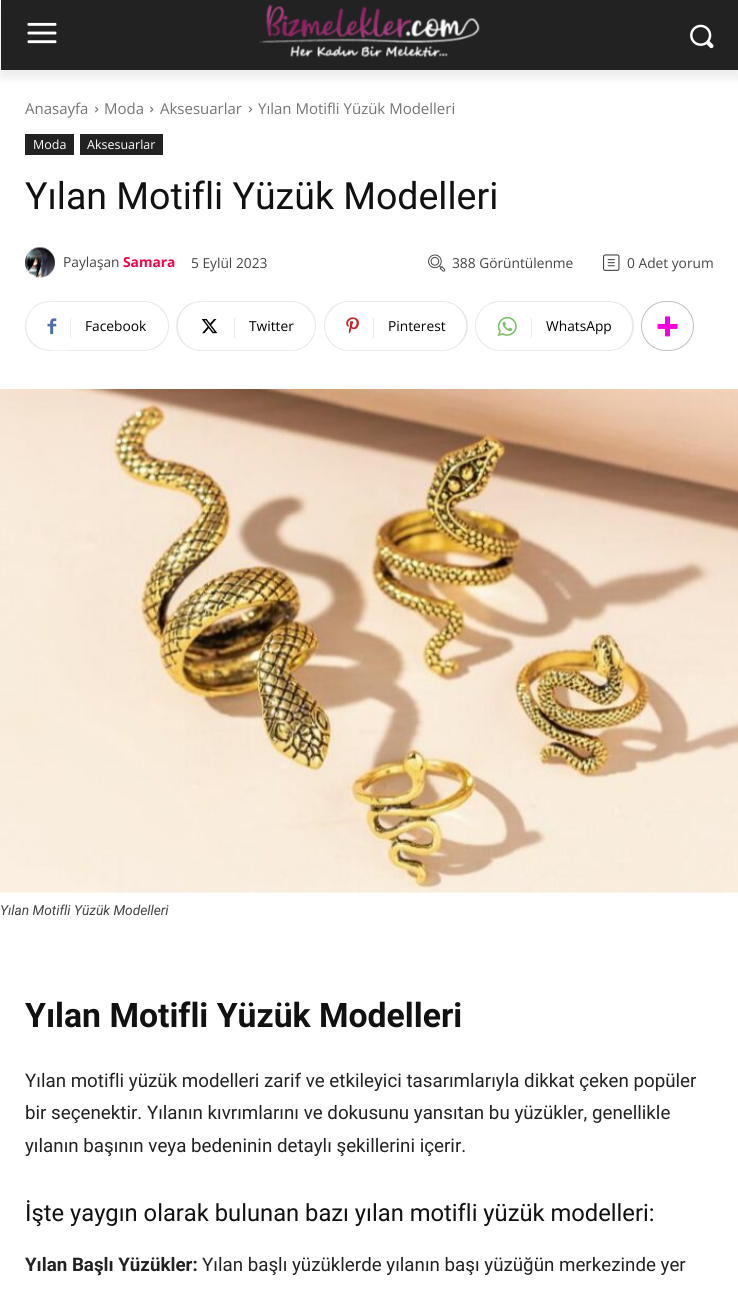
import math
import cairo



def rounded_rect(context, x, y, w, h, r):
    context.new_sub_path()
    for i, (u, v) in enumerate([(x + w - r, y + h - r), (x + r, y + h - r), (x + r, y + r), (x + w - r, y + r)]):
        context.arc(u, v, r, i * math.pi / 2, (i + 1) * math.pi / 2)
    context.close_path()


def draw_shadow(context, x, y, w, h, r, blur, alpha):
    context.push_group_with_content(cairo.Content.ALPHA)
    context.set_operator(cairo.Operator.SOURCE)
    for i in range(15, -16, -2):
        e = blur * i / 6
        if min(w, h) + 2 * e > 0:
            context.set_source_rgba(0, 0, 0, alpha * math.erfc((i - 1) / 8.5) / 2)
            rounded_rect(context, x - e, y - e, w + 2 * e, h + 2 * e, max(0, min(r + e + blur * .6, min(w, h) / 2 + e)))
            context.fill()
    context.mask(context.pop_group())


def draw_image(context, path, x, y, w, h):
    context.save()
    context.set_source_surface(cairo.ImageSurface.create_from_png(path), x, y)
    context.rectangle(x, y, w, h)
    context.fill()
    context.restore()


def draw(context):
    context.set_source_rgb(1, 1, 1)
    context.paint()
    context.set_source_rgb(34 / 255, 34 / 255, 34 / 255)
    context.rectangle(1, 0, 737, 70)
    context.fill()
    draw_image(context, "images/1.png", 27, 22, 30, 22)
    draw_image(context, "images/2.png", 259, 4, 221, 54)
    draw_image(context, "images/3.png", 690, 24, 24, 25)
    context.save()
    context.set_fill_rule(cairo.FillRule.EVEN_ODD)
    context.new_path()
    context.move_to(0, 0)
    context.line_to(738, 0)
    context.line_to(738, 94)
    context.line_to(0, 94)
    context.close_path()
    context.move_to(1, 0)
    context.line_to(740, 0)
    context.line_to(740, 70)
    context.line_to(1, 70)
    context.close_path()
    context.clip()
    context.set_source_rgb(0, 0, 0)
    draw_shadow(context, 1, 8, 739, 70, 0, 5, 0.08)
    context.restore()
    draw_image(context, "images/4.png", 95, 106, 4, 7)
    draw_image(context, "images/4.png", 150, 106, 4, 7)
    draw_image(context, "images/5.png", 248, 106, 5, 7)
    context.rectangle(25, 134, 49, 21)
    context.fill()
    context.rectangle(80, 134, 83, 21)
    context.fill()
    draw_image(context, "images/6.png", 25, 247, 30, 31)
    draw_image(context, "images/7.png", 428, 254, 18, 18)
    draw_image(context, "images/8.png", 603, 254, 17, 17)
    context.set_source_rgb(233 / 255, 233 / 255, 233 / 255)
    context.set_fill_rule(cairo.FillRule.EVEN_ODD)
    context.new_path()
    context.move_to(70, 301)
    context.line_to(144, 301)
    context.curve_to(158, 301, 169, 312, 169, 326)
    context.curve_to(169, 340, 158, 351, 144, 351)
    context.line_to(70, 351)
    context.close_path()
    context.move_to(70, 302)
    context.line_to(144, 302)
    context.curve_to(157, 302, 168, 313, 168, 326)
    context.curve_to(168, 339, 157, 350, 144, 350)
    context.line_to(70, 350)
    context.close_path()
    context.fill()
    context.save()
    context.set_fill_rule(cairo.FillRule.WINDING)
    context.rectangle(25, 301, 144, 50)
    context.clip()
    context.set_fill_rule(cairo.FillRule.EVEN_ODD)
    context.new_path()
    context.move_to(50, 301)
    context.line_to(78, 301)
    context.line_to(78, 351)
    context.curve_to(68, 351, 49, 353, 40, 349)
    context.curve_to(15, 339, 23, 301, 50, 301)
    context.close_path()
    context.move_to(50, 302)
    context.line_to(78, 302)
    context.line_to(78, 350)
    context.curve_to(68, 350, 49, 352, 41, 348)
    context.curve_to(17, 338, 24, 302, 50, 302)
    context.close_path()
    context.fill()
    context.restore()
    draw_image(context, "images/9.png", 47, 318, 10, 17)
    context.set_source_rgb(235 / 255, 235 / 255, 235 / 255)
    context.rectangle(70, 318, 1, 20)
    context.fill()
    context.set_source_rgb(233 / 255, 233 / 255, 233 / 255)
    context.new_path()
    context.move_to(234, 301)
    context.line_to(291, 301)
    context.curve_to(305, 301, 316, 312, 316, 326)
    context.curve_to(316, 340, 305, 351, 291, 351)
    context.line_to(234, 351)
    context.close_path()
    context.move_to(234, 302)
    context.line_to(291, 302)
    context.curve_to(304, 302, 315, 313, 315, 326)
    context.curve_to(315, 339, 304, 350, 291, 350)
    context.line_to(234, 350)
    context.close_path()
    context.fill()
    context.new_path()
    context.move_to(201, 301)
    context.line_to(241, 301)
    context.line_to(241, 351)
    context.line_to(201, 351)
    context.curve_to(187, 351, 176, 340, 176, 326)
    context.curve_to(176, 312, 187, 301, 201, 301)
    context.close_path()
    context.move_to(201, 302)
    context.line_to(241, 302)
    context.line_to(241, 350)
    context.line_to(201, 350)
    context.curve_to(188, 350, 178, 339, 178, 326)
    context.curve_to(178, 313, 188, 302, 201, 302)
    context.close_path()
    context.fill()
    draw_image(context, "images/10.png", 201, 319, 17, 15)
    context.set_source_rgb(235 / 255, 235 / 255, 235 / 255)
    context.rectangle(234, 318, 1, 20)
    context.fill()
    context.set_source_rgb(233 / 255, 233 / 255, 233 / 255)
    context.new_path()
    context.move_to(372, 301)
    context.line_to(442, 301)
    context.curve_to(456, 301, 468, 312, 468, 326)
    context.curve_to(468, 340, 456, 351, 442, 351)
    context.line_to(372, 351)
    context.close_path()
    context.move_to(372, 302)
    context.line_to(442, 302)
    context.curve_to(456, 302, 466, 313, 466, 326)
    context.curve_to(466, 339, 456, 350, 442, 350)
    context.line_to(372, 350)
    context.close_path()
    context.fill()
    context.new_path()
    context.move_to(349, 301)
    context.line_to(380, 301)
    context.line_to(380, 351)
    context.line_to(349, 351)
    context.curve_to(335, 351, 324, 340, 324, 326)
    context.curve_to(324, 312, 335, 301, 349, 301)
    context.close_path()
    context.move_to(349, 302)
    context.line_to(380, 302)
    context.line_to(380, 350)
    context.line_to(349, 350)
    context.curve_to(336, 350, 325, 339, 325, 326)
    context.curve_to(325, 313, 336, 302, 349, 302)
    context.close_path()
    context.fill()
    draw_image(context, "images/11.png", 346, 317, 13, 17)
    context.set_source_rgb(235 / 255, 235 / 255, 235 / 255)
    context.rectangle(373, 318, 1, 20)
    context.fill()
    context.set_source_rgb(233 / 255, 233 / 255, 233 / 255)
    context.new_path()
    context.move_to(531, 301)
    context.line_to(609, 301)
    context.curve_to(623, 301, 634, 312, 634, 326)
    context.curve_to(634, 340, 623, 351, 609, 351)
    context.line_to(531, 351)
    context.close_path()
    context.move_to(531, 302)
    context.line_to(609, 302)
    context.curve_to(622, 302, 632, 313, 632, 326)
    context.curve_to(632, 339, 622, 350, 609, 350)
    context.line_to(531, 350)
    context.close_path()
    context.fill()
    context.new_path()
    context.move_to(500, 301)
    context.line_to(539, 301)
    context.line_to(539, 351)
    context.line_to(500, 351)
    context.curve_to(486, 351, 475, 340, 475, 326)
    context.curve_to(475, 312, 486, 301, 500, 301)
    context.close_path()
    context.move_to(500, 302)
    context.line_to(539, 302)
    context.line_to(539, 350)
    context.line_to(500, 350)
    context.curve_to(487, 350, 476, 339, 476, 326)
    context.curve_to(476, 313, 487, 302, 500, 302)
    context.close_path()
    context.fill()
    draw_image(context, "images/12.png", 497, 316, 20, 21)
    context.set_source_rgb(235 / 255, 235 / 255, 235 / 255)
    context.rectangle(531, 318, 1, 20)
    context.fill()
    rounded_rect(context, 641.5, 301.5, 52, 49, 24.5)
    context.set_source_rgb(191 / 255, 191 / 255, 191 / 255)
    context.set_line_width(1)
    context.stroke()
    draw_image(context, "images/13.png", 657, 316, 21, 21)
    draw_image(context, "images/14.png", 0, 389, 738, 504)
    context.select_font_face("Open Sans")
    context.set_font_size(15)
    context.set_source_rgb(116 / 255, 116 / 255, 116 / 255)
    context.move_to(25, 114)
    context.show_text("Anasayfa")
    context.move_to(104, 114)
    context.show_text("Moda")
    context.move_to(160, 114)
    context.show_text("Aksesuarlar")
    context.move_to(258, 114)
    context.show_text("Yılan Motifli Yüzük Modelleri")
    context.set_font_size(12.5)
    context.set_source_rgb(1, 1, 1)
    context.move_to(33, 149)
    context.show_text("Moda")
    context.move_to(87, 149)
    context.show_text("Aksesuarlar")
    context.select_font_face("Roboto")
    context.set_font_size(37.5)
    context.set_source_rgb(17 / 255, 17 / 255, 17 / 255)
    context.move_to(25, 209)
    context.show_text("Yılan Motifli Yüzük Modelleri")
    context.select_font_face("Open Sans")
    context.set_font_size(13.75)
    context.set_source_rgb(68 / 255, 68 / 255, 68 / 255)
    context.move_to(63, 267)
    context.show_text("Paylaşan")
    context.select_font_face("Open Sans", cairo.FontSlant.NORMAL, cairo.FontWeight.BOLD)
    context.set_source_rgb(247 / 255, 0, 70 / 255)
    context.move_to(123, 267)
    context.show_text("Samara")
    context.select_font_face("Open Sans")
    context.set_source_rgb(68 / 255, 68 / 255, 68 / 255)
    context.move_to(191, 268)
    context.show_text("5 Eylül 2023")
    context.move_to(452, 268)
    context.show_text("388 Görüntülenme")
    context.move_to(627, 268)
    context.show_text("0 Adet yorum")
    context.set_source_rgb(0, 0, 0)
    context.move_to(85, 331)
    context.show_text("Facebook")
    context.move_to(249, 331)
    context.show_text("Twitter")
    context.move_to(388, 331)
    context.show_text("Pinterest")
    context.move_to(546, 331)
    context.show_text("WhatsApp")
    context.select_font_face("Roboto", cairo.FontSlant.ITALIC)
    context.set_source_rgb(68 / 255, 68 / 255, 68 / 255)
    context.move_to(0, 915)
    context.show_text("Yılan Motifli Yüzük Modelleri")
    context.select_font_face("Roboto", cairo.FontSlant.NORMAL, cairo.FontWeight.BOLD)
    context.set_font_size(33.75)
    context.set_source_rgb(17 / 255, 17 / 255, 17 / 255)
    context.move_to(25, 1027)
    context.show_text("Yılan Motifli Yüzük Modelleri")
    context.select_font_face("Roboto")
    context.set_font_size(18.75)
    context.set_source_rgb(34 / 255, 34 / 255, 34 / 255)
    context.move_to(25, 1087)
    context.show_text("Yılan motifli yüzük modelleri zarif ve etkileyici tasarımlarıyla dikkat çeken popüler")
    context.move_to(25, 1119)
    context.show_text("bir seçenektir. Yılanın kıvrımlarını ve dokusunu yansıtan bu yüzükler, genellikle")
    context.move_to(25, 1152)
    context.show_text("yılanın başının veya bedeninin detaylı şekillerini içerir.")
    context.set_font_size(23.75)
    context.set_source_rgb(17 / 255, 17 / 255, 17 / 255)
    context.move_to(25, 1221)
    context.show_text("İşte yaygın olarak bulunan bazı yılan motifli yüzük modelleri:")
    context.select_font_face("Roboto", cairo.FontSlant.NORMAL, cairo.FontWeight.BOLD)
    context.set_font_size(18.75)
    context.set_source_rgb(34 / 255, 34 / 255, 34 / 255)
    context.move_to(25, 1271)
    context.show_text("Yılan Başlı Yüzükler:")
    context.select_font_face("Roboto")
    context.move_to(202, 1271)
    context.show_text("Yılan başlı yüzüklerde yılanın başı yüzüğün merkezinde yer")


surface = cairo.ImageSurface(cairo.Format.RGB24, 738, 1298)
context = cairo.Context(surface)
options = cairo.FontOptions()
options.set_hint_metrics(cairo.HintMetrics.OFF)
options.set_hint_style(cairo.HintStyle.NONE)
context.set_font_options(options)
context.set_miter_limit(4)
draw(context)
surface.write_to_png("out.png")
